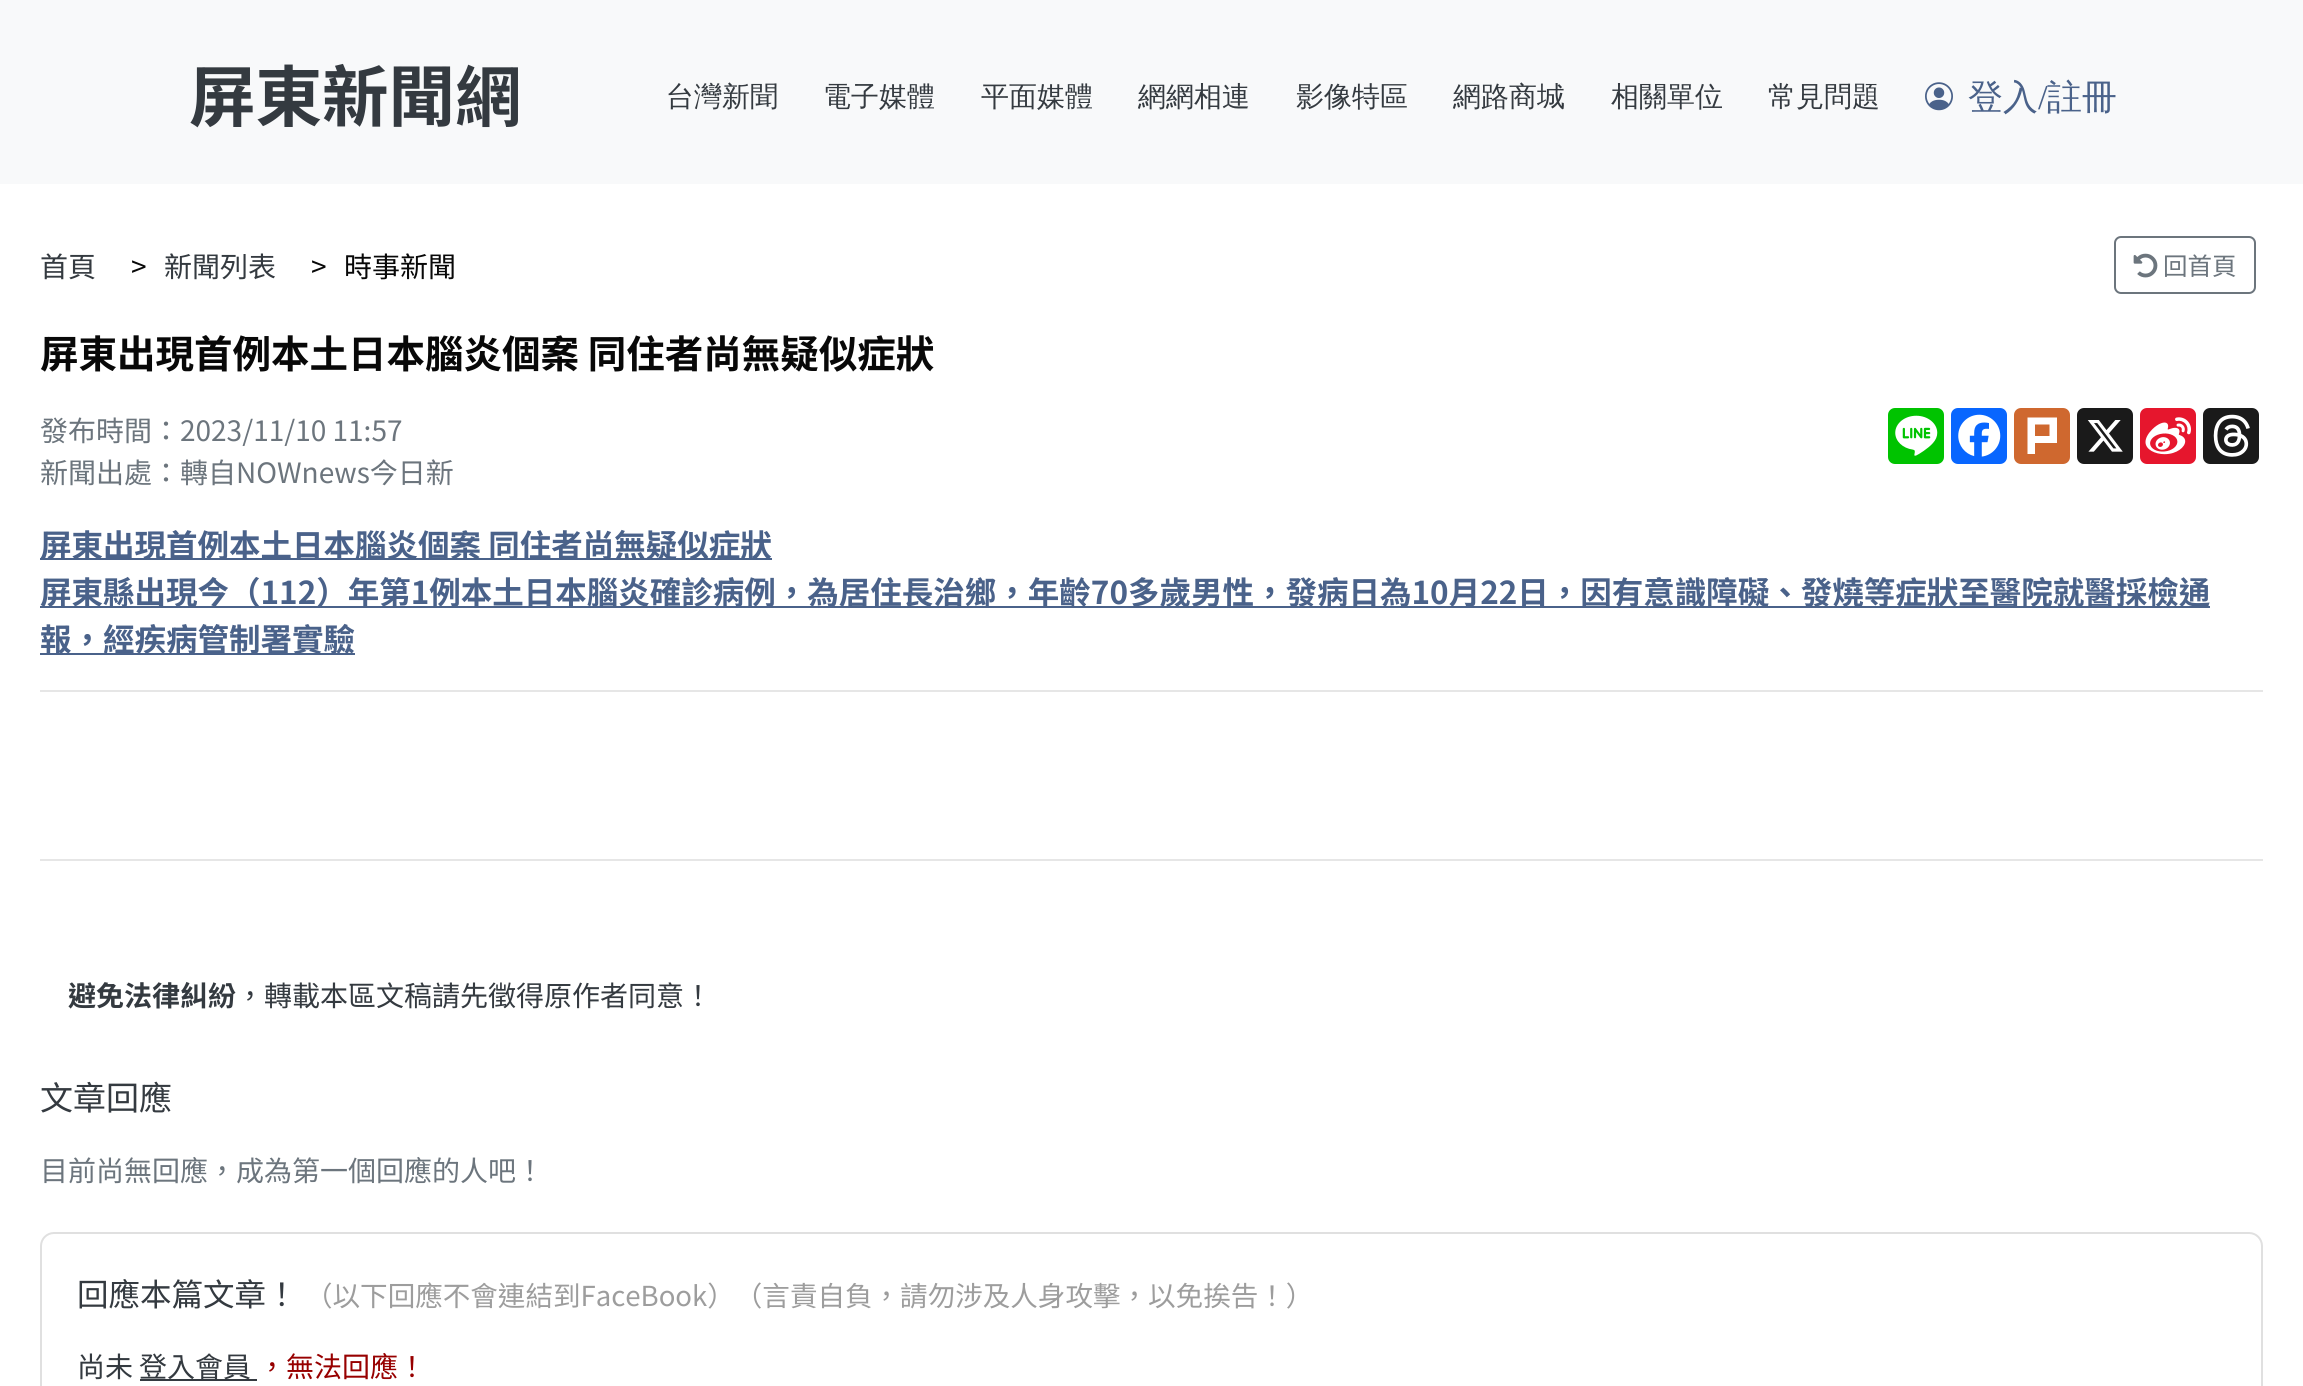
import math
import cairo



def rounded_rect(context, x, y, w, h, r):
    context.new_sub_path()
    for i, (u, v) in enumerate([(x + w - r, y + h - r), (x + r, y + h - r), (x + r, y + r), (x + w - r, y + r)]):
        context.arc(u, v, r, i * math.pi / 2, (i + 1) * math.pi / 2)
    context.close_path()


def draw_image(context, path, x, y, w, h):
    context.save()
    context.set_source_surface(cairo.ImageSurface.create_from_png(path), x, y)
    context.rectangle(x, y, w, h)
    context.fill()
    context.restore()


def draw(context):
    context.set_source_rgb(1, 1, 1)
    context.paint()
    context.set_source_rgb(248 / 255, 249 / 255, 250 / 255)
    context.rectangle(0, 0, 2303, 184)
    context.fill()
    draw_image(context, "images/1.png", 1925, 82, 28, 29)
    rounded_rect(context, 2115, 237, 140, 56, 6)
    context.set_source_rgb(108 / 255, 117 / 255, 125 / 255)
    context.stroke()
    draw_image(context, "images/2.png", 2133, 253, 25, 25)
    context.set_source_rgb(0, 195 / 255, 0)
    rounded_rect(context, 1888, 408, 56, 56, 7)
    context.fill()
    draw_image(context, "images/3.png", 1895, 415, 43, 41)
    context.set_source_rgb(8 / 255, 102 / 255, 1)
    rounded_rect(context, 1951, 408, 56, 56, 7)
    context.fill()
    draw_image(context, "images/4.png", 1958, 414, 43, 43)
    context.set_source_rgb(207 / 255, 104 / 255, 47 / 255)
    rounded_rect(context, 2014, 408, 56, 56, 7)
    context.fill()
    context.set_source_rgb(1, 1, 1)
    context.new_path()
    context.move_to(2049.5, 436)
    context.line_to(2035, 436)
    context.line_to(2035, 424.5)
    context.line_to(2049.5, 424.5)
    context.close_path()
    context.move_to(2057, 443)
    context.line_to(2057, 417.5)
    context.line_to(2027.5, 417.5)
    context.line_to(2027.5, 454)
    context.line_to(2035, 454)
    context.line_to(2035, 443)
    context.close_path()
    context.fill()
    context.set_source_rgb(26 / 255, 26 / 255, 26 / 255)
    rounded_rect(context, 2077, 408, 56, 56, 7)
    context.fill()
    draw_image(context, "images/5.png", 2087, 420, 36, 32)
    context.set_source_rgb(230 / 255, 22 / 255, 45 / 255)
    rounded_rect(context, 2140, 408, 56, 56, 7)
    context.fill()
    draw_image(context, "images/6.png", 2145, 417, 46, 38)
    context.set_source_rgb(26 / 255, 26 / 255, 26 / 255)
    rounded_rect(context, 2203, 408, 56, 56, 7)
    context.fill()
    draw_image(context, "images/7.png", 2213, 414, 37, 43)
    context.set_source_rgb(74 / 255, 98 / 255, 138 / 255)
    context.rectangle(40, 558, 732, 2)
    context.fill()
    context.rectangle(40, 606, 2170, 2)
    context.fill()
    context.rectangle(40, 653, 315, 2)
    context.fill()
    context.set_source_rgb(230 / 255, 230 / 255, 230 / 255)
    context.rectangle(40, 690, 2223, 2)
    context.fill()
    context.rectangle(40, 859, 2223, 2)
    context.fill()
    rounded_rect(context, 41, 1233, 2221, 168, 13)
    context.set_source_rgb(224 / 255, 224 / 255, 224 / 255)
    context.stroke()
    context.set_source_rgb(52 / 255, 58 / 255, 64 / 255)
    context.rectangle(140, 1379, 117, 2)
    context.fill()
    context.select_font_face("Noto Sans TC", cairo.FontSlant.NORMAL, cairo.FontWeight.BOLD)
    context.set_font_size(66.5)
    context.move_to(189, 121)
    context.show_text("屏東新聞網")
    context.select_font_face("WenQuanYi Zen Hei Medium")
    context.set_font_size(28)
    context.move_to(666, 106)
    context.show_text("台灣新聞")
    context.move_to(823, 106)
    context.show_text("電子媒體")
    context.move_to(981, 106)
    context.show_text("平面媒體")
    context.move_to(1138, 106)
    context.show_text("網網相連")
    context.move_to(1296, 106)
    context.show_text("影像特區")
    context.move_to(1453, 106)
    context.show_text("網路商城")
    context.move_to(1611, 106)
    context.show_text("相關單位")
    context.move_to(1768, 106)
    context.show_text("常見問題")
    context.set_font_size(35)
    context.set_source_rgb(74 / 255, 98 / 255, 138 / 255)
    context.move_to(1968, 109)
    context.show_text("登入")
    context.select_font_face("Liberation Serif")
    context.move_to(2038, 109)
    context.show_text("/")
    context.select_font_face("WenQuanYi Zen Hei Medium")
    context.move_to(2047, 109)
    context.show_text("註冊")
    context.select_font_face("Noto Sans TC")
    context.set_font_size(28)
    context.set_source_rgb(52 / 255, 58 / 255, 64 / 255)
    context.move_to(40, 277)
    context.show_text("首頁")
    context.set_source_rgb(8 / 255, 8 / 255, 8 / 255)
    context.move_to(131, 277)
    context.show_text(">")
    context.set_source_rgb(52 / 255, 58 / 255, 64 / 255)
    context.move_to(164, 277)
    context.show_text("新聞列表")
    context.set_source_rgb(8 / 255, 8 / 255, 8 / 255)
    context.move_to(311, 277)
    context.show_text(">")
    context.move_to(344, 277)
    context.show_text("時事新聞")
    context.set_font_size(24.5)
    context.set_source_rgb(108 / 255, 117 / 255, 125 / 255)
    context.move_to(2163, 275)
    context.show_text("回首頁")
    context.select_font_face("Noto Sans TC", cairo.FontSlant.NORMAL, cairo.FontWeight.BOLD)
    context.set_font_size(38.5)
    context.set_source_rgb(8 / 255, 8 / 255, 8 / 255)
    context.move_to(40, 368)
    context.show_text("屏東出現首例本土日本腦炎個案 同住者尚無疑似症狀")
    context.select_font_face("Noto Sans TC")
    context.set_font_size(28)
    context.set_source_rgb(108 / 255, 117 / 255, 125 / 255)
    context.move_to(40, 441)
    context.show_text("發布時間：2023/11/10 11:57")
    context.move_to(40, 483)
    context.show_text("新聞出處：轉自NOWnews今日新")
    context.select_font_face("Noto Sans TC", cairo.FontSlant.NORMAL, cairo.FontWeight.BOLD)
    context.set_font_size(31.5)
    context.set_source_rgb(74 / 255, 98 / 255, 138 / 255)
    context.move_to(40, 557)
    context.show_text("屏東出現首例本土日本腦炎個案 同住者尚無疑似症狀")
    context.move_to(40, 604)
    context.show_text("屏東縣出現今（112）年第1例本土日本腦炎確診病例，為居住長治鄉，年齡70多歲男性，發病日為10月22日，因有意識障礙、發燒等症狀至醫院就醫採檢通")
    context.move_to(40, 651)
    context.show_text("報，經疾病管制署實驗")
    context.set_font_size(28)
    context.set_source_rgb(52 / 255, 58 / 255, 64 / 255)
    context.move_to(68, 1006)
    context.show_text("避免法律糾紛")
    context.select_font_face("Noto Sans TC")
    context.move_to(236, 1006)
    context.show_text("，轉載本區文稿請先徵得原作者同意！")
    context.set_font_size(33)
    context.move_to(40, 1110)
    context.show_text("文章回應")
    context.set_font_size(28)
    context.set_source_rgb(108 / 255, 117 / 255, 125 / 255)
    context.move_to(40, 1181)
    context.show_text("目前尚無回應，成為第一個回應的人吧！")
    context.set_font_size(31.5)
    context.set_source_rgb(52 / 255, 58 / 255, 64 / 255)
    context.move_to(77, 1306)
    context.show_text("回應本篇文章！")
    context.set_font_size(27.55)
    context.set_source_rgb(157 / 255, 157 / 255, 157 / 255)
    context.move_to(305, 1306)
    context.show_text("（以下回應不會連結到FaceBook）（言責自負，請勿涉及人身攻擊，以免挨告！）")
    context.set_font_size(28)
    context.set_source_rgb(52 / 255, 58 / 255, 64 / 255)
    context.move_to(77, 1377)
    context.show_text("尚未")
    context.move_to(139, 1377)
    context.show_text("登入會員")
    context.set_source_rgb(151 / 255, 0, 0)
    context.move_to(258, 1377)
    context.show_text("，無法回應！")


surface = cairo.ImageSurface(cairo.Format.RGB24, 2303, 1386)
context = cairo.Context(surface)
options = cairo.FontOptions()
options.set_hint_metrics(cairo.HintMetrics.OFF)
options.set_hint_style(cairo.HintStyle.NONE)
context.set_font_options(options)
context.set_miter_limit(4)
draw(context)
surface.write_to_png("out.png")
